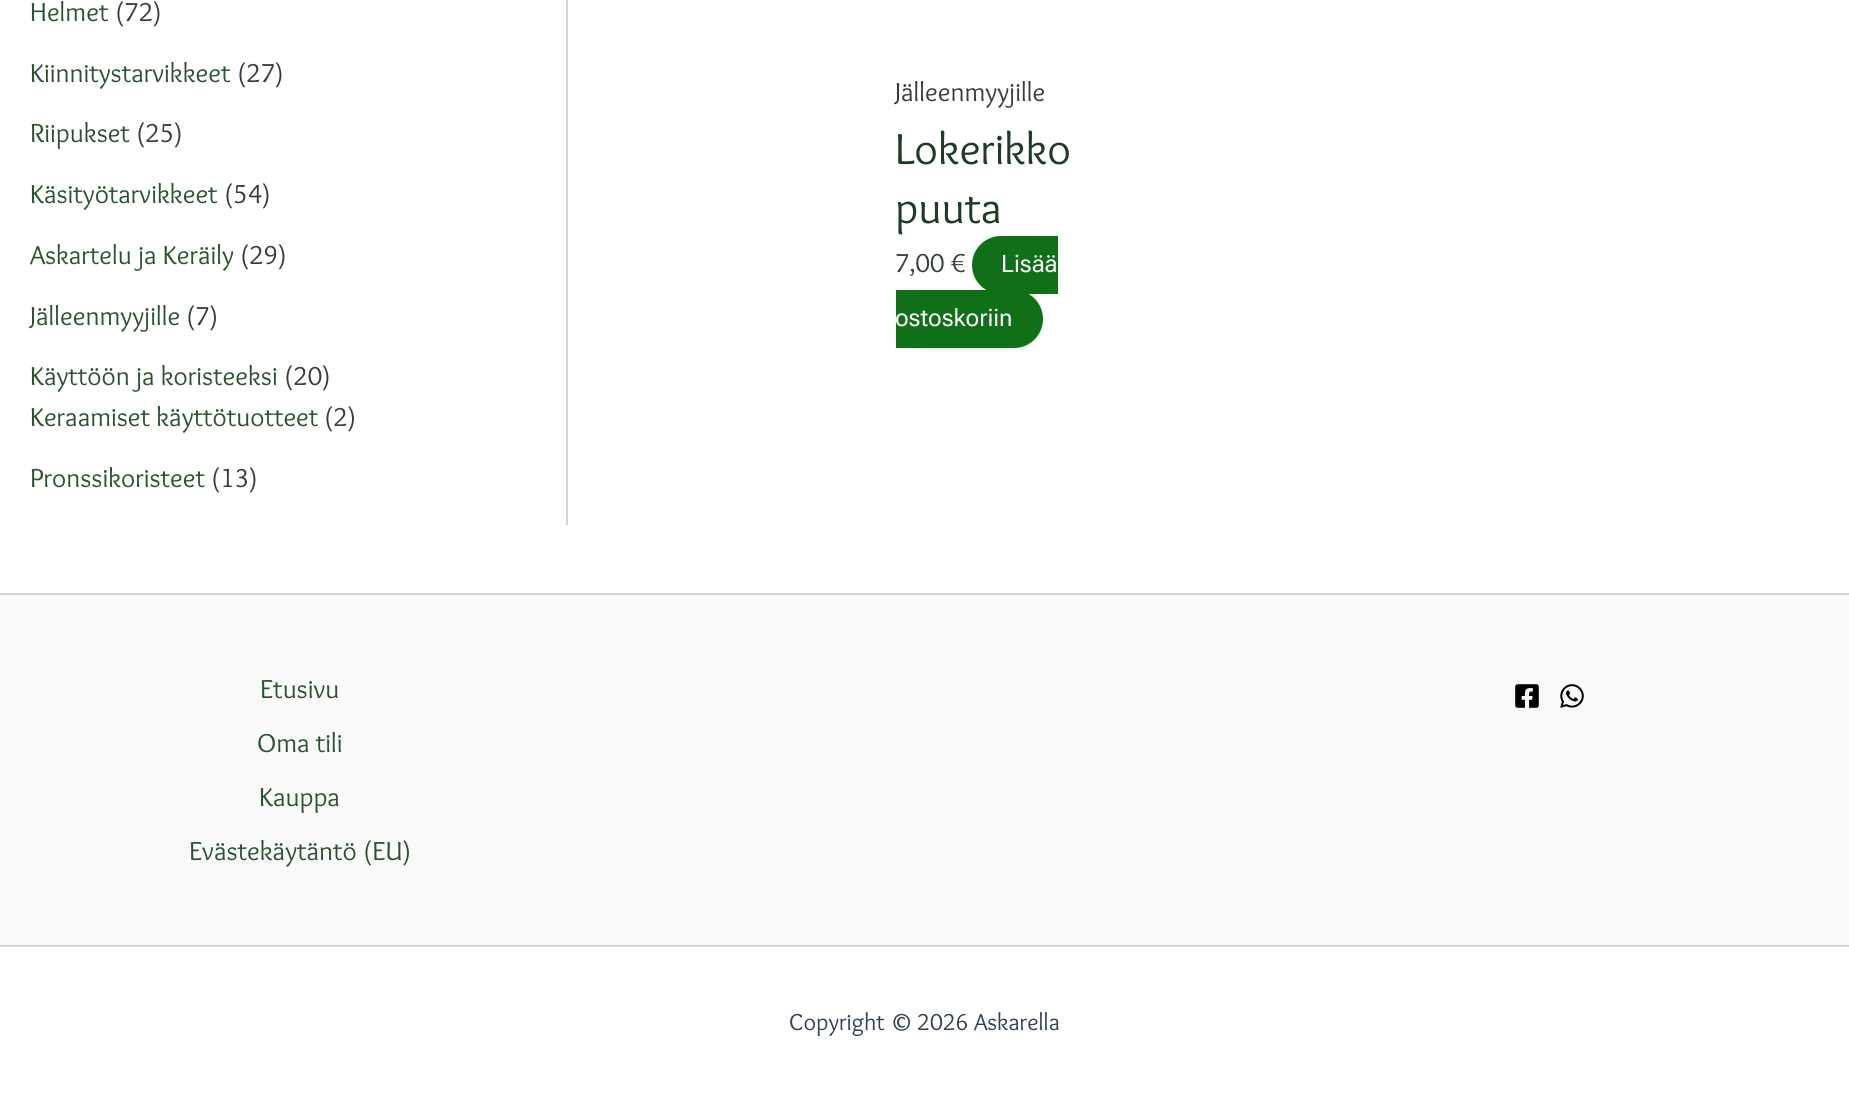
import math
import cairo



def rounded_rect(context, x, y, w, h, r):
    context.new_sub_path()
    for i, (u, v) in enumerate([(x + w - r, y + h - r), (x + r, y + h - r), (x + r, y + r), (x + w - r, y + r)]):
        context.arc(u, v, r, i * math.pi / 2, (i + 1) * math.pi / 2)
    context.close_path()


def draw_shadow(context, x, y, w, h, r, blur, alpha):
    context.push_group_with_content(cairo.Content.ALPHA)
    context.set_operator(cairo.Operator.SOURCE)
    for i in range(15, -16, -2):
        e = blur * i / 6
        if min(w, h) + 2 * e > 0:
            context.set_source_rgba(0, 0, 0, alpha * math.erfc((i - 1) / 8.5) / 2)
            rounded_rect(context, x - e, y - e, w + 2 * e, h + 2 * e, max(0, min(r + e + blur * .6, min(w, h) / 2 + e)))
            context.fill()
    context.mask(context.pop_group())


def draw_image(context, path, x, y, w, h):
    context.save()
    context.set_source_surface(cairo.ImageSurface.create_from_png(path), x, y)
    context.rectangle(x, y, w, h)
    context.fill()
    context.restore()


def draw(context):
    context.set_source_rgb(1, 1, 1)
    context.paint()
    context.set_source_rgb(209 / 255, 213 / 255, 219 / 255)
    context.rectangle(566, 0, 2, 525)
    context.fill()
    context.set_source_rgb(0, 0, 0)
    draw_shadow(context, 972, 237, 86, 59, 29.5, 1.5, 0.05)
    context.set_source_rgb(15 / 255, 112 / 255, 23 / 255)
    context.new_path()
    context.move_to(1001, 236)
    context.line_to(1058, 236)
    context.line_to(1058, 294)
    context.line_to(1001, 294)
    context.curve_to(985, 294, 972, 281, 972, 265)
    context.curve_to(972, 249, 985, 236, 1001, 236)
    context.close_path()
    context.fill()
    context.set_source_rgb(0, 0, 0)
    draw_shadow(context, 896, 291, 147, 59, 29.5, 1.5, 0.05)
    context.set_source_rgb(15 / 255, 112 / 255, 23 / 255)
    context.new_path()
    context.move_to(896, 290)
    context.line_to(1014, 290)
    context.curve_to(1030, 290, 1043, 303, 1043, 319)
    context.curve_to(1043, 335, 1030, 348, 1014, 348)
    context.line_to(896, 348)
    context.close_path()
    context.fill()
    context.set_source_rgb(249 / 255, 249 / 255, 249 / 255)
    context.rectangle(0, 595, 1849, 350)
    context.fill()
    context.set_source_rgb(209 / 255, 213 / 255, 219 / 255)
    context.rectangle(0, 593, 1849, 2)
    context.fill()
    draw_image(context, "images/1.png", 1515, 684, 24, 24)
    draw_image(context, "images/2.png", 1560, 684, 24, 24)
    context.rectangle(0, 945, 1849, 2)
    context.fill()
    context.select_font_face("Overlock")
    context.set_font_size(27)
    context.set_source_rgb(45 / 255, 82 / 255, 50 / 255)
    context.move_to(30, 21)
    context.show_text("Helmet")
    context.set_source_rgb(54 / 255, 63 / 255, 53 / 255)
    context.move_to(115, 21)
    context.show_text("(72)")
    context.set_source_rgb(45 / 255, 82 / 255, 50 / 255)
    context.move_to(30, 82)
    context.show_text("Kiinnitystarvikkeet")
    context.set_source_rgb(54 / 255, 63 / 255, 53 / 255)
    context.move_to(237, 82)
    context.show_text("(27)")
    context.set_source_rgb(45 / 255, 82 / 255, 50 / 255)
    context.move_to(30, 142)
    context.show_text("Riipukset")
    context.set_source_rgb(54 / 255, 63 / 255, 53 / 255)
    context.move_to(136, 142)
    context.show_text("(25)")
    context.set_source_rgb(45 / 255, 82 / 255, 50 / 255)
    context.move_to(30, 203)
    context.show_text("Käsityötarvikkeet")
    context.set_source_rgb(54 / 255, 63 / 255, 53 / 255)
    context.move_to(224, 203)
    context.show_text("(54)")
    context.set_source_rgb(45 / 255, 82 / 255, 50 / 255)
    context.move_to(30, 264)
    context.show_text("Askartelu ja Keräily")
    context.set_source_rgb(54 / 255, 63 / 255, 53 / 255)
    context.move_to(240, 264)
    context.show_text("(29)")
    context.set_source_rgb(45 / 255, 82 / 255, 50 / 255)
    context.move_to(30, 325)
    context.show_text("Jälleenmyyjille")
    context.set_source_rgb(54 / 255, 63 / 255, 53 / 255)
    context.move_to(186, 325)
    context.show_text("(7)")
    context.set_source_rgb(45 / 255, 82 / 255, 50 / 255)
    context.move_to(30, 385)
    context.show_text("Käyttöön ja koristeeksi")
    context.set_source_rgb(54 / 255, 63 / 255, 53 / 255)
    context.move_to(284, 385)
    context.show_text("(20)")
    context.set_source_rgb(45 / 255, 82 / 255, 50 / 255)
    context.move_to(30, 426)
    context.show_text("Keraamiset käyttötuotteet")
    context.set_source_rgb(54 / 255, 63 / 255, 53 / 255)
    context.move_to(324, 426)
    context.show_text("(2)")
    context.set_source_rgb(45 / 255, 82 / 255, 50 / 255)
    context.move_to(30, 487)
    context.show_text("Pronssikoristeet")
    context.set_source_rgb(54 / 255, 63 / 255, 53 / 255)
    context.move_to(211, 487)
    context.show_text("(13)")
    context.move_to(895, 101)
    context.show_text("Jälleenmyyjille")
    context.set_font_size(45)
    context.set_source_rgb(30 / 255, 59 / 255, 37 / 255)
    context.move_to(895, 164)
    context.show_text("Lokerikko")
    context.move_to(895, 223)
    context.show_text("puuta")
    context.set_font_size(27)
    context.set_source_rgb(54 / 255, 63 / 255, 53 / 255)
    context.move_to(895, 272)
    context.show_text("7,00 €")
    context.select_font_face("Roboto Flex")
    context.set_font_size(24)
    context.set_source_rgb(1, 1, 1)
    context.move_to(1001, 272)
    context.show_text("Lisää")
    context.move_to(895, 326)
    context.show_text("ostoskoriin")
    context.select_font_face("Overlock")
    context.set_font_size(27)
    context.set_source_rgb(45 / 255, 82 / 255, 50 / 255)
    context.move_to(260, 698)
    context.show_text("Etusivu")
    context.move_to(257, 752)
    context.show_text("Oma tili")
    context.move_to(259, 806)
    context.show_text("Kauppa")
    context.move_to(189, 860)
    context.show_text("Evästekäytäntö (EU)")
    context.set_font_size(24)
    context.set_source_rgb(51 / 255, 65 / 255, 85 / 255)
    context.move_to(789, 1030)
    context.show_text("Copyright © 2026 Askarella")


surface = cairo.ImageSurface(cairo.Format.RGB24, 1849, 1096)
context = cairo.Context(surface)
options = cairo.FontOptions()
options.set_hint_metrics(cairo.HintMetrics.OFF)
options.set_hint_style(cairo.HintStyle.NONE)
context.set_font_options(options)
context.set_miter_limit(4)
draw(context)
surface.write_to_png("out.png")
